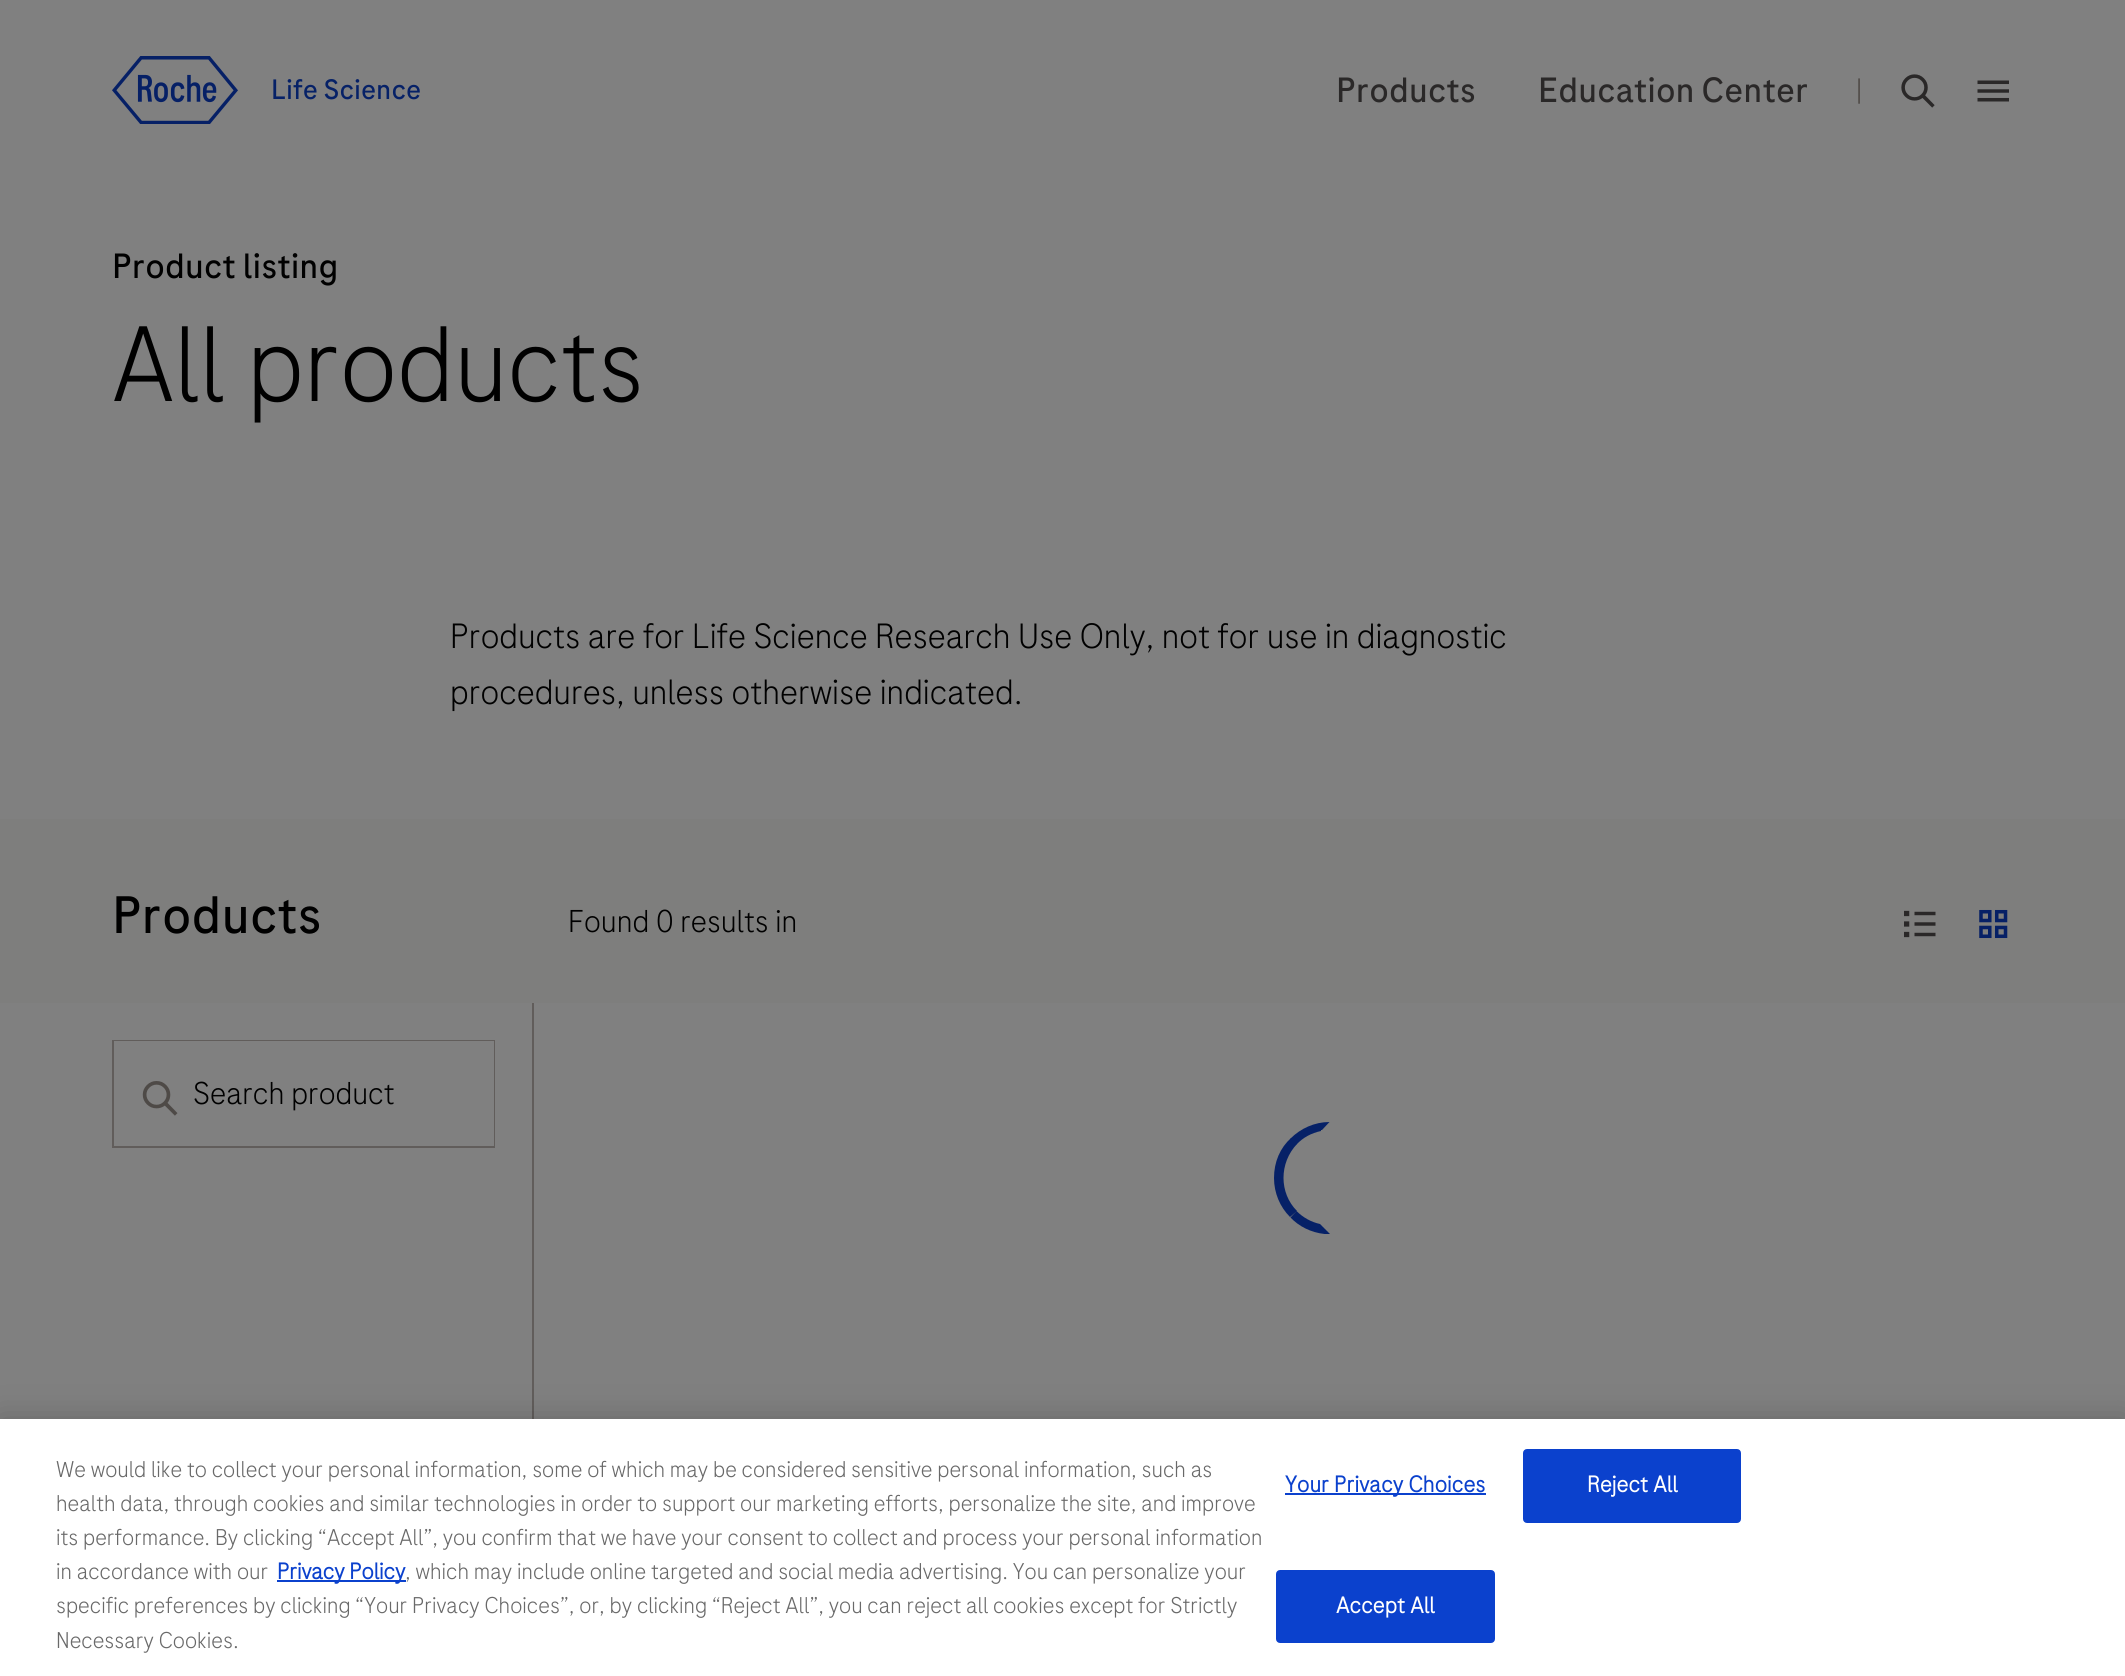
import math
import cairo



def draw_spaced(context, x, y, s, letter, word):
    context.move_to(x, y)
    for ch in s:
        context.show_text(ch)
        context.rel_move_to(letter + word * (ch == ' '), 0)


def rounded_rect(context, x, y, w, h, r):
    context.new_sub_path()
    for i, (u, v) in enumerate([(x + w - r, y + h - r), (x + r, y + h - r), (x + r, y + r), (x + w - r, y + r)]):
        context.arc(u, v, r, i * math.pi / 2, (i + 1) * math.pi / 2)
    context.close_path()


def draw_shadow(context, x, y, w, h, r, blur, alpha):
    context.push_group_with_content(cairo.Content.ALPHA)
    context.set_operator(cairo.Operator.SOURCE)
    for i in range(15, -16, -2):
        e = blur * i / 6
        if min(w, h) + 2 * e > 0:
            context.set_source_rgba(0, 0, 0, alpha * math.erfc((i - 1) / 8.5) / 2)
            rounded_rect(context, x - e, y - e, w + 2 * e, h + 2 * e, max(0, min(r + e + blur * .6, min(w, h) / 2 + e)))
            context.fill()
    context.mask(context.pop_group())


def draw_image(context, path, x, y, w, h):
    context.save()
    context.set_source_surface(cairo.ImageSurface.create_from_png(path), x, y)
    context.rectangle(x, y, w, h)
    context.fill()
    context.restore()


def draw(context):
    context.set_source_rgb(128 / 255, 128 / 255, 128 / 255)
    context.paint()
    draw_image(context, "images/1.png", 112, 56, 126, 68)
    draw_image(context, "images/2.png", 1901, 74, 34, 34)
    draw_image(context, "images/3.png", 1977, 80, 32, 22)
    context.set_source_rgb(126 / 255, 126 / 255, 125 / 255)
    context.rectangle(0, 819, 2125, 184)
    context.fill()
    draw_image(context, "images/4.png", 1904, 910, 32, 28)
    draw_image(context, "images/5.png", 1979, 909, 29, 30)
    context.rectangle(113, 1041, 381, 106)
    context.set_source_rgb(97 / 255, 93 / 255, 91 / 255)
    context.stroke()
    context.set_source_rgb(128 / 255, 128 / 255, 128 / 255)
    context.rectangle(114, 1041, 380, 105)
    context.fill()
    draw_image(context, "images/6.png", 142, 1081, 36, 35)
    context.set_source_rgb(97 / 255, 93 / 255, 91 / 255)
    context.rectangle(532, 1003, 2, 416)
    context.fill()
    context.set_source_rgb(6 / 255, 33 / 255, 103 / 255)
    context.new_path()
    context.move_to(1329.5, 1122)
    context.curve_to(1314.5, 1122, 1300.5, 1128.5, 1290.5, 1138.5)
    context.line_to(1296.5, 1144.5)
    context.curve_to(1303, 1137.5, 1311.5, 1133, 1321, 1131)
    context.line_to(1321, 1130)
    context.line_to(1322, 1130)
    context.close_path()
    context.fill()
    context.new_path()
    context.move_to(1330, 1234)
    context.line_to(1324.5, 1234)
    context.curve_to(1311, 1232.5, 1299, 1226.5, 1290.5, 1217.5)
    context.line_to(1296.5, 1211)
    context.curve_to(1303, 1217.5, 1311, 1222, 1320, 1224)
    context.line_to(1321, 1225)
    context.close_path()
    context.fill()
    context.new_path()
    context.move_to(1274, 1178)
    context.curve_to(1274, 1193, 1280, 1207, 1290, 1217)
    context.line_to(1297, 1211)
    context.curve_to(1279, 1193, 1279, 1163, 1297, 1144)
    context.line_to(1291, 1138)
    context.curve_to(1280, 1148, 1274, 1162, 1274, 1178)
    context.close_path()
    context.fill()
    context.set_source_rgb(0, 0, 0)
    draw_shadow(context, 0, 1419, 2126, 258, 0, 16, 0.2)
    context.set_source_rgb(1, 1, 1)
    context.rectangle(0, 1419, 2125, 257)
    context.fill()
    context.set_source_rgb(11 / 255, 65 / 255, 205 / 255)
    context.rectangle(277, 1580, 129, 2)
    context.fill()
    context.rectangle(1285, 1493, 201, 2)
    context.fill()
    rounded_rect(context, 1524, 1450, 216, 72, 3)
    context.fill_preserve()
    context.stroke()
    rounded_rect(context, 1277, 1571, 217, 71, 3)
    context.fill_preserve()
    context.stroke()
    context.select_font_face("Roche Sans")
    context.set_font_size(28)
    context.set_source_rgb(6 / 255, 33 / 255, 103 / 255)
    context.move_to(271, 99)
    context.show_text("Life Science")
    context.set_font_size(35)
    context.set_source_rgb(42 / 255, 40 / 255, 40 / 255)
    context.move_to(1336, 102)
    context.show_text("Products")
    context.move_to(1538, 102)
    context.show_text("Education Center")
    context.select_font_face("Roche Sans Light")
    context.set_font_size(28)
    context.set_source_rgb(79 / 255, 74 / 255, 71 / 255)
    context.move_to(1856, 98)
    context.show_text("|")
    context.select_font_face("Roche Sans")
    context.set_font_size(35)
    context.set_source_rgb(0, 0, 0)
    context.move_to(112, 278)
    context.show_text("Product listing")
    context.select_font_face("Roche Sans Light")
    context.set_font_size(106.75)
    context.move_to(112, 401)
    context.show_text("All products")
    context.set_font_size(35)
    context.move_to(450, 648)
    context.show_text("Products are for Life Science Research Use Only, not for use in diagnostic")
    context.move_to(450, 704)
    context.show_text("procedures, unless otherwise indicated.")
    context.select_font_face("Roche Sans")
    context.set_font_size(52.5)
    context.move_to(112, 933)
    context.show_text("Products")
    context.select_font_face("Roche Sans Light")
    context.set_font_size(31.5)
    context.move_to(568, 932)
    context.show_text("Found 0 results in")
    context.move_to(193, 1104)
    context.show_text("Search product")
    context.set_font_size(22.75)
    context.set_source_rgb(105 / 255, 105 / 255, 105 / 255)
    context.move_to(56, 1477)
    context.show_text("We would like to collect your personal information, some of which may be considered sensitive personal information, such as")
    context.move_to(56, 1511)
    context.show_text("health data, through cookies and similar technologies in order to support our marketing efforts, personalize the site, and improve")
    context.move_to(56, 1545)
    context.show_text("its performance. By clicking “Accept All”, you confirm that we have your consent to collect and process your personal information")
    context.move_to(56, 1579)
    context.show_text("in accordance with our")
    context.select_font_face("Roche Sans", cairo.FontSlant.NORMAL, cairo.FontWeight.BOLD)
    context.set_source_rgb(11 / 255, 65 / 255, 205 / 255)
    context.move_to(277, 1579)
    context.show_text("Privacy Policy")
    context.select_font_face("Roche Sans Light")
    context.set_source_rgb(105 / 255, 105 / 255, 105 / 255)
    context.move_to(405, 1579)
    context.show_text(", which may include online targeted and social media advertising. You can personalize your")
    context.move_to(56, 1613)
    context.show_text("specific preferences by clicking “Your Privacy Choices”, or, by clicking “Reject All”, you can reject all cookies except for Strictly")
    context.move_to(56, 1648)
    context.show_text("Necessary Cookies.")
    context.select_font_face("Roche Sans", cairo.FontSlant.NORMAL, cairo.FontWeight.BOLD)
    context.set_source_rgb(11 / 255, 65 / 255, 205 / 255)
    draw_spaced(context, 1285, 1492, "Your Privacy Choices", 0.25, 0)
    context.set_source_rgb(1, 1, 1)
    draw_spaced(context, 1587, 1492, "Reject All", 0.25, 0)
    draw_spaced(context, 1336, 1613, "Accept All", 0.25, 0)


surface = cairo.ImageSurface(cairo.Format.RGB24, 2125, 1676)
context = cairo.Context(surface)
options = cairo.FontOptions()
options.set_hint_metrics(cairo.HintMetrics.OFF)
options.set_hint_style(cairo.HintStyle.NONE)
context.set_font_options(options)
context.set_miter_limit(4)
draw(context)
surface.write_to_png("out.png")
